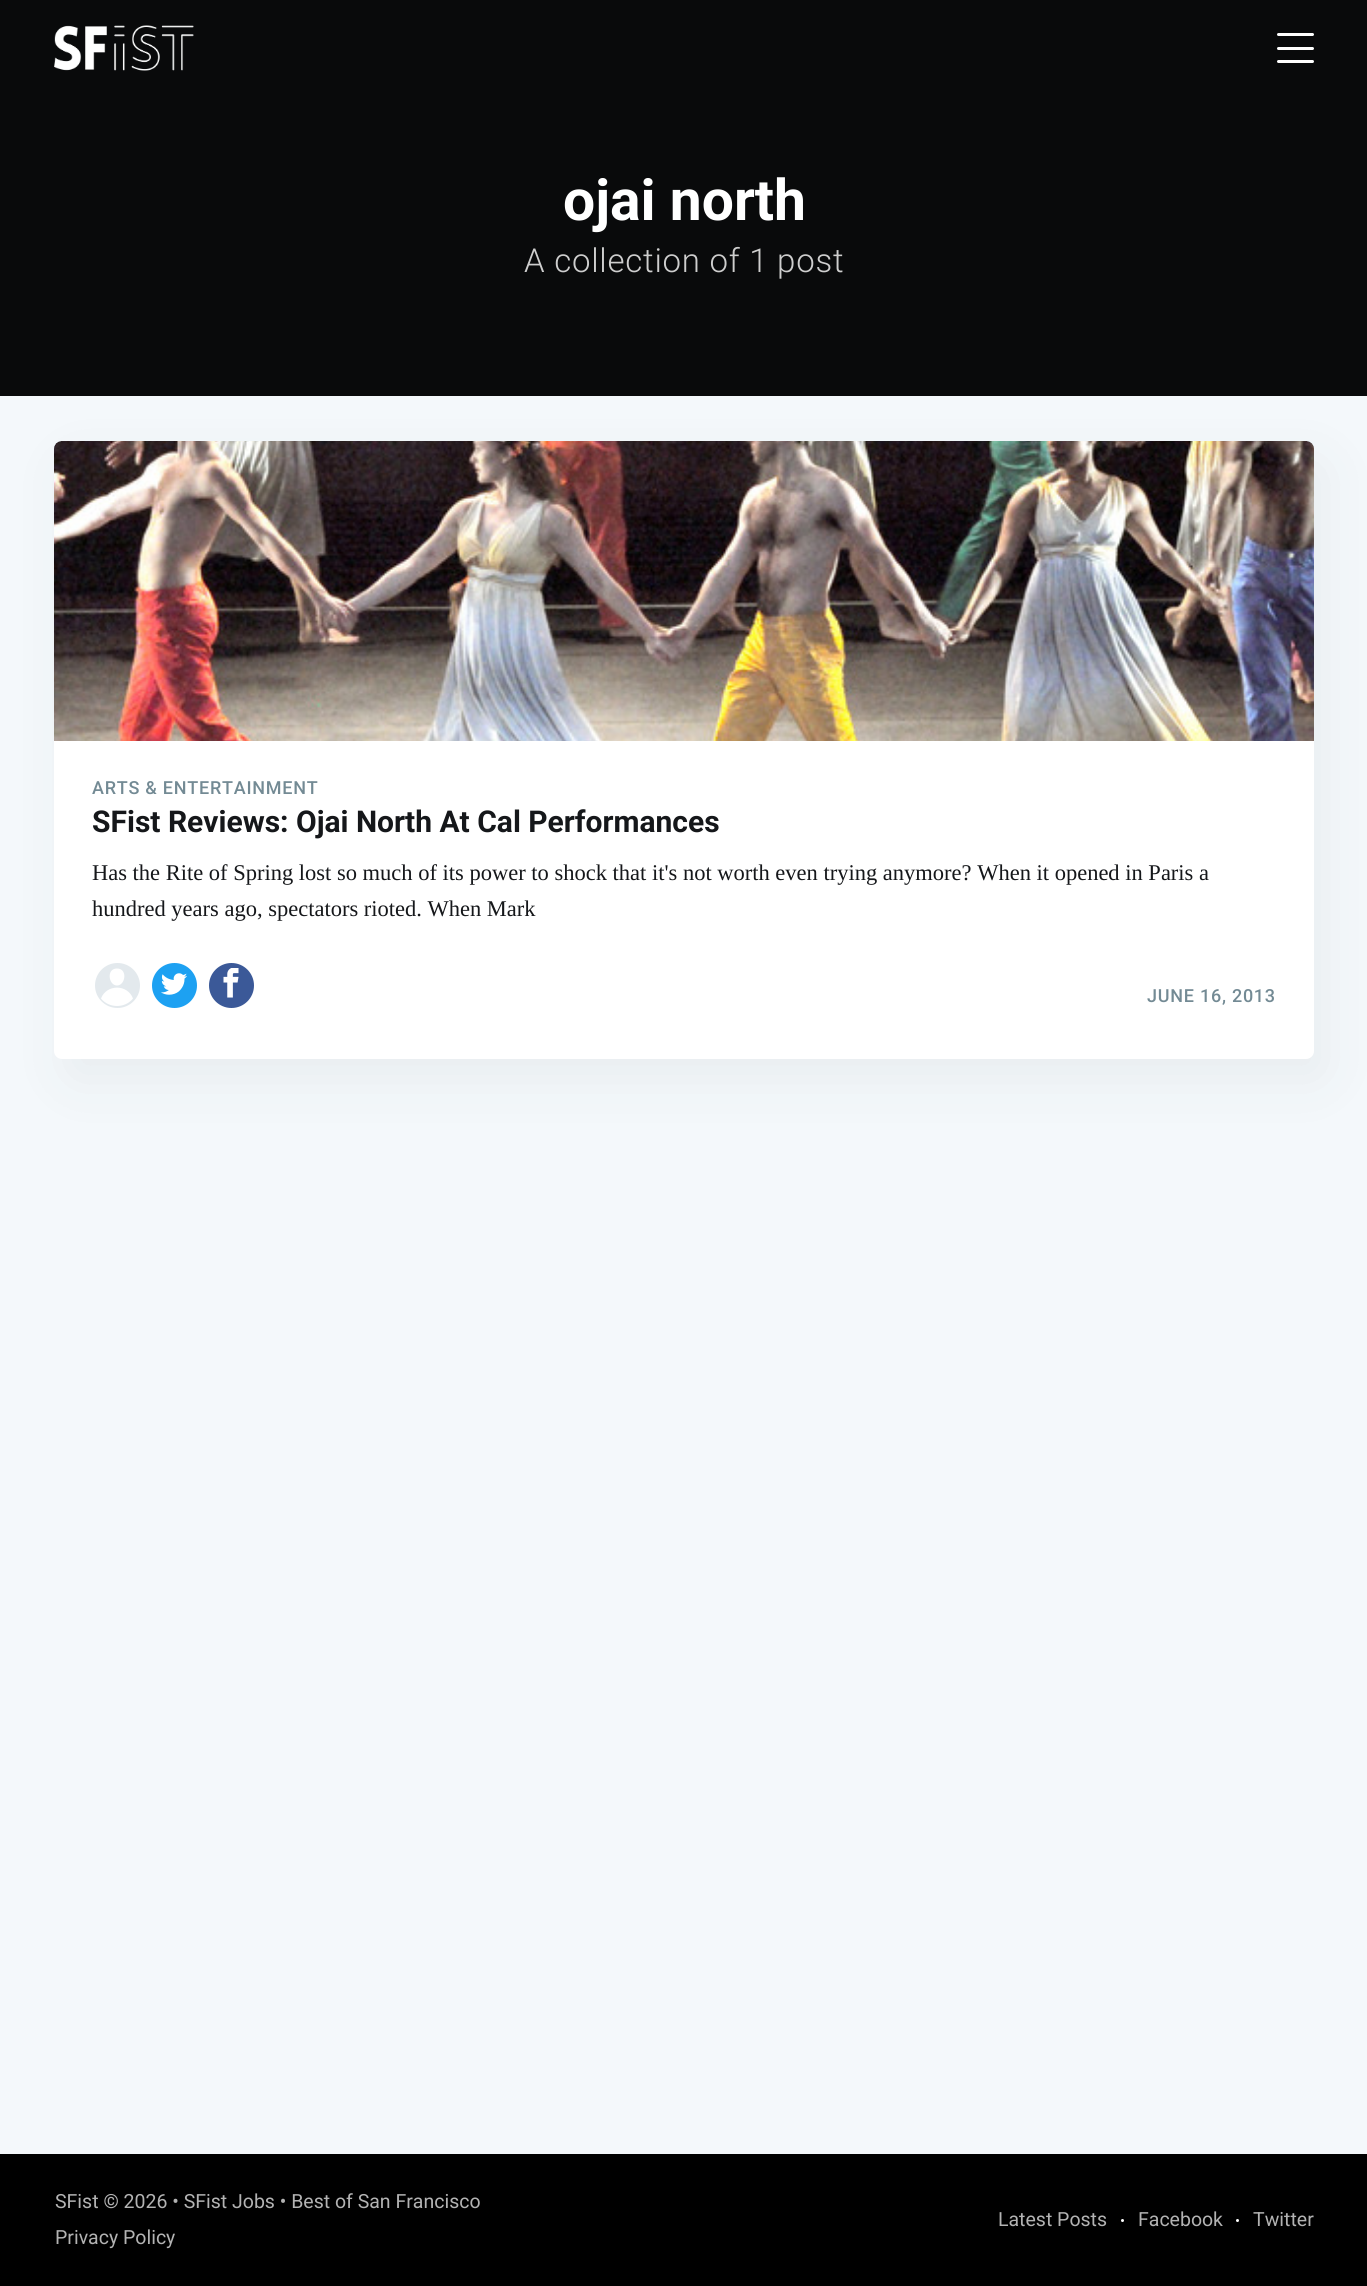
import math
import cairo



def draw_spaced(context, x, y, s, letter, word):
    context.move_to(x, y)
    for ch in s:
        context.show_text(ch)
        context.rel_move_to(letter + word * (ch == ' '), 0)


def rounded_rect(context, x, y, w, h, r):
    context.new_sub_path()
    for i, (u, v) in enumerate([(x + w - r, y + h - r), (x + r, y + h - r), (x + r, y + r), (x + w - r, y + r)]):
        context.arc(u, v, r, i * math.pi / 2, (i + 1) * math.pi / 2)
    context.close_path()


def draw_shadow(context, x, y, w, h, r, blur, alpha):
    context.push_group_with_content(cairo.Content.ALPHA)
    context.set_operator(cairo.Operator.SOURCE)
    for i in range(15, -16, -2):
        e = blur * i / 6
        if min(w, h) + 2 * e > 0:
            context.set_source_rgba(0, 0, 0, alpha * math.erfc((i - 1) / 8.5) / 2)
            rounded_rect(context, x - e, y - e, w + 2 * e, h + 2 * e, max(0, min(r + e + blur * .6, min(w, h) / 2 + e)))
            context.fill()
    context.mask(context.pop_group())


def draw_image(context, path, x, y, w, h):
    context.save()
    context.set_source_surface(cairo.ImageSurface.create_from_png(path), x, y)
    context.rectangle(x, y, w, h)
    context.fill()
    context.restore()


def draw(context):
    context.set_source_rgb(244 / 255, 248 / 255, 251 / 255)
    context.paint()
    context.set_source_rgb(9 / 255, 10 / 255, 11 / 255)
    context.rectangle(0, 0, 1367, 396)
    context.fill()
    draw_image(context, "images/1.png", 54, 25, 140, 46)
    context.set_source_rgb(1, 1, 1)
    rounded_rect(context, 1277, 33, 37, 3, 1.5)
    context.fill()
    rounded_rect(context, 1277, 47, 37, 3, 1.5)
    context.fill()
    rounded_rect(context, 1277, 60, 37, 3, 1.5)
    context.fill()
    context.set_source_rgb(39 / 255, 44 / 255, 49 / 255)
    draw_shadow(context, 66, 462, 1260, 618, 8, 28.5, 0.06)
    context.set_source_rgb(1, 1, 1)
    rounded_rect(context, 54, 441, 1260, 618, 8)
    context.fill()
    context.set_source_rgb(197 / 255, 210 / 255, 217 / 255)
    context.new_path()
    context.move_to(62, 441)
    context.line_to(1306, 441)
    context.curve_to(1310.5, 441, 1314, 444.5, 1314, 449)
    context.line_to(1314, 741)
    context.line_to(54, 741)
    context.line_to(54, 449)
    context.curve_to(54, 444.5, 57.5, 441, 62, 441)
    context.close_path()
    context.fill()
    draw_image(context, "images/2.png", 54, 441, 1260, 300)
    context.set_source_rgb(227 / 255, 233 / 255, 237 / 255)
    context.arc(117.5, 985.5, 24, 0, 2 * math.pi)
    context.fill_preserve()
    context.set_source_rgb(1, 1, 1)
    context.set_line_width(3)
    context.stroke()
    context.set_fill_rule(cairo.FillRule.EVEN_ODD)
    context.new_path()
    context.move_to(101, 998.5)
    context.curve_to(106.5, 984, 127.5, 984, 133, 998.5)
    context.curve_to(125, 1008.5, 109, 1008.5, 101, 998.5)
    context.close_path()
    context.move_to(117, 985.5)
    context.curve_to(125.5, 985.5, 128, 968.5, 117, 968.5)
    context.curve_to(106, 968.5, 108.5, 985.5, 117, 985.5)
    context.close_path()
    context.fill()
    context.set_source_rgb(29 / 255, 161 / 255, 242 / 255)
    context.arc(174.5, 985.5, 24, 0, 2 * math.pi)
    context.fill_preserve()
    context.set_source_rgb(1, 1, 1)
    context.stroke()
    draw_image(context, "images/3.png", 161, 973, 26, 22)
    context.set_source_rgb(59 / 255, 89 / 255, 152 / 255)
    context.arc(231.5, 985.5, 24, 0, 2 * math.pi)
    context.fill_preserve()
    context.set_source_rgb(1, 1, 1)
    context.stroke()
    draw_image(context, "images/4.png", 223, 968, 16, 30)
    context.set_source_rgb(0, 0, 0)
    context.rectangle(0, 2154, 1367, 132)
    context.fill()
    context.set_source_rgb(1, 1, 1)
    context.arc(1122.5, 2220.5, 1.5, 0, 2 * math.pi)
    context.fill()
    context.arc(1237.5, 2220.5, 1.5, 0, 2 * math.pi)
    context.fill()
    context.select_font_face("Roboto", cairo.FontSlant.NORMAL, cairo.FontWeight.BOLD)
    context.set_font_size(57)
    context.move_to(563, 220)
    context.show_text("ojai north")
    context.select_font_face("Roboto Light")
    context.set_font_size(33)
    context.set_source_rgb(206 / 255, 206 / 255, 206 / 255)
    draw_spaced(context, 524, 272, "A collection of 1 post", 0.75, 0)
    context.select_font_face("Roboto Medium")
    context.set_font_size(18)
    context.set_source_rgb(115 / 255, 138 / 255, 148 / 255)
    draw_spaced(context, 92, 794, "ARTS & ENTERTAINMENT", 0.75, 0)
    context.select_font_face("Roboto", cairo.FontSlant.NORMAL, cairo.FontWeight.BOLD)
    context.set_font_size(30)
    context.set_source_rgb(21 / 255, 23 / 255, 26 / 255)
    context.move_to(92, 832)
    context.show_text("SFist Reviews: Ojai North At Cal Performances")
    context.select_font_face("Liberation Serif")
    context.set_font_size(22.5)
    context.move_to(92, 880)
    context.show_text("Has the Rite of Spring lost so much of its power to shock that it's not worth even trying anymore? When it opened in Paris a")
    context.move_to(92, 916)
    context.show_text("hundred years ago, spectators rioted. When Mark")
    context.select_font_face("Roboto Medium")
    context.set_font_size(18)
    context.set_source_rgb(115 / 255, 138 / 255, 148 / 255)
    draw_spaced(context, 1147, 1002, "JUNE 16, 2013", 0.75, 0)
    context.select_font_face("Roboto")
    context.set_font_size(19.5)
    context.set_source_rgb(179 / 255, 179 / 255, 179 / 255)
    context.move_to(55, 2208)
    context.show_text("SFist © 2026 • SFist Jobs • Best of San Francisco")
    context.move_to(55, 2244)
    context.show_text("Privacy Policy")
    context.move_to(998, 2226)
    context.show_text("Latest Posts")
    context.move_to(1138, 2226)
    context.show_text("Facebook")
    context.move_to(1253, 2226)
    context.show_text("Twitter")


surface = cairo.ImageSurface(cairo.Format.RGB24, 1367, 2286)
context = cairo.Context(surface)
options = cairo.FontOptions()
options.set_hint_metrics(cairo.HintMetrics.OFF)
options.set_hint_style(cairo.HintStyle.NONE)
context.set_font_options(options)
context.set_miter_limit(4)
draw(context)
surface.write_to_png("out.png")
